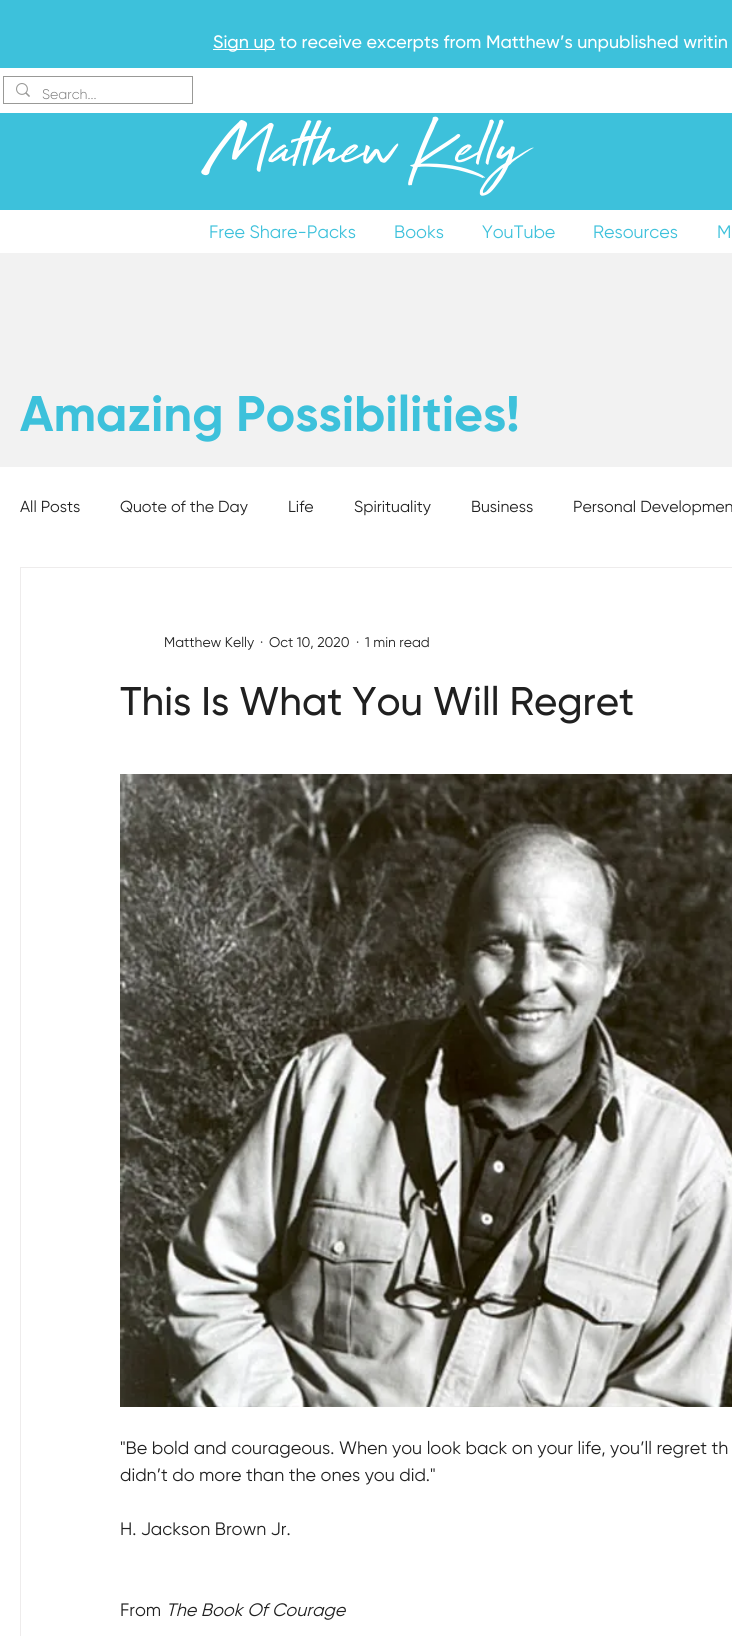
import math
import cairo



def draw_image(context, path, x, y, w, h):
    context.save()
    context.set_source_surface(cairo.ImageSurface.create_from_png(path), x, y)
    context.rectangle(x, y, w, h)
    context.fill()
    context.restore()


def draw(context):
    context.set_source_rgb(242 / 255, 242 / 255, 242 / 255)
    context.paint()
    context.set_source_rgb(61 / 255, 193 / 255, 219 / 255)
    context.rectangle(0, 0, 732, 210)
    context.fill()
    context.set_source_rgb(1, 1, 1)
    context.rectangle(213, 49, 62, 1)
    context.fill()
    context.rectangle(0, 68, 732, 45)
    context.fill()
    context.rectangle(3.5, 76.5, 189, 27)
    context.set_source_rgb(153 / 255, 153 / 255, 151 / 255)
    context.set_line_width(1)
    context.stroke()
    draw_image(context, "images/1.png", 16, 83, 14, 14)
    context.set_source_rgb(1, 1, 1)
    context.rectangle(0, 210, 732, 43)
    context.fill()
    context.rectangle(0, 467, 732, 1169)
    context.fill()
    context.rectangle(20.5, 567.5, 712, 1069)
    context.set_source_rgb(238 / 255, 236 / 255, 236 / 255)
    context.stroke()
    draw_image(context, "images/2.png", 120, 774, 612, 633)
    context.select_font_face("Gilroy Medium")
    context.set_font_size(18)
    context.set_source_rgb(1, 1, 1)
    context.move_to(213, 48)
    context.show_text("Sign up to receive excerpts from Matthew’s unpublished writin")
    context.select_font_face("Gilroy Light")
    context.set_font_size(14)
    context.set_source_rgb(120 / 255, 120 / 255, 120 / 255)
    context.move_to(42, 99)
    context.show_text("Search...")
    context.select_font_face("Gilroy")
    context.set_font_size(18)
    context.set_source_rgb(61 / 255, 193 / 255, 219 / 255)
    context.move_to(209, 238)
    context.show_text("Free Share-Packs")
    context.move_to(394, 238)
    context.show_text("Books")
    context.move_to(482, 238)
    context.show_text("YouTube")
    context.move_to(593, 238)
    context.show_text("Resources")
    context.move_to(717, 238)
    context.show_text("M")
    context.select_font_face("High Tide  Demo")
    context.set_font_size(70)
    context.set_source_rgb(1, 1, 1)
    context.move_to(209, 163)
    context.show_text("Matthew Kelly")
    context.select_font_face("Gilroy", cairo.FontSlant.NORMAL, cairo.FontWeight.BOLD)
    context.set_font_size(50)
    context.set_source_rgb(61 / 255, 193 / 255, 219 / 255)
    context.move_to(20, 431)
    context.show_text("Amazing Possibilities!")
    context.select_font_face("Gilroy")
    context.set_font_size(16)
    context.set_source_rgb(32 / 255, 32 / 255, 32 / 255)
    context.move_to(20, 512)
    context.show_text("All Posts")
    context.move_to(120, 512)
    context.show_text("Quote of the Day")
    context.move_to(288, 512)
    context.show_text("Life")
    context.move_to(354, 512)
    context.show_text("Spirituality")
    context.move_to(471, 512)
    context.show_text("Business")
    context.move_to(573, 512)
    context.show_text("Personal Developmen")
    context.set_font_size(14)
    context.move_to(164, 647)
    context.show_text("Matthew Kelly")
    context.move_to(260, 647)
    context.show_text("·")
    context.move_to(269, 647)
    context.show_text("Oct 10, 2020")
    context.move_to(356, 647)
    context.show_text("·")
    context.move_to(365, 647)
    context.show_text("1 min read")
    context.select_font_face("Gilroy Medium")
    context.set_font_size(40)
    context.move_to(120, 715)
    context.show_text("This Is What You Will Regret")
    context.select_font_face("Gilroy")
    context.set_font_size(18)
    context.move_to(120, 1454)
    context.show_text("\"Be bold and courageous. When you look back on your life, you’ll regret th")
    context.move_to(120, 1481)
    context.show_text("didn’t do more than the ones you did.\"")
    context.move_to(120, 1535)
    context.show_text("H. Jackson Brown Jr.")
    context.move_to(120, 1616)
    context.show_text("From")
    context.select_font_face("Gilroy", cairo.FontSlant.ITALIC)
    context.move_to(166, 1616)
    context.show_text("The Book Of Courage")


surface = cairo.ImageSurface(cairo.Format.RGB24, 732, 1636)
context = cairo.Context(surface)
options = cairo.FontOptions()
options.set_hint_metrics(cairo.HintMetrics.OFF)
options.set_hint_style(cairo.HintStyle.NONE)
context.set_font_options(options)
context.set_miter_limit(4)
draw(context)
surface.write_to_png("out.png")
